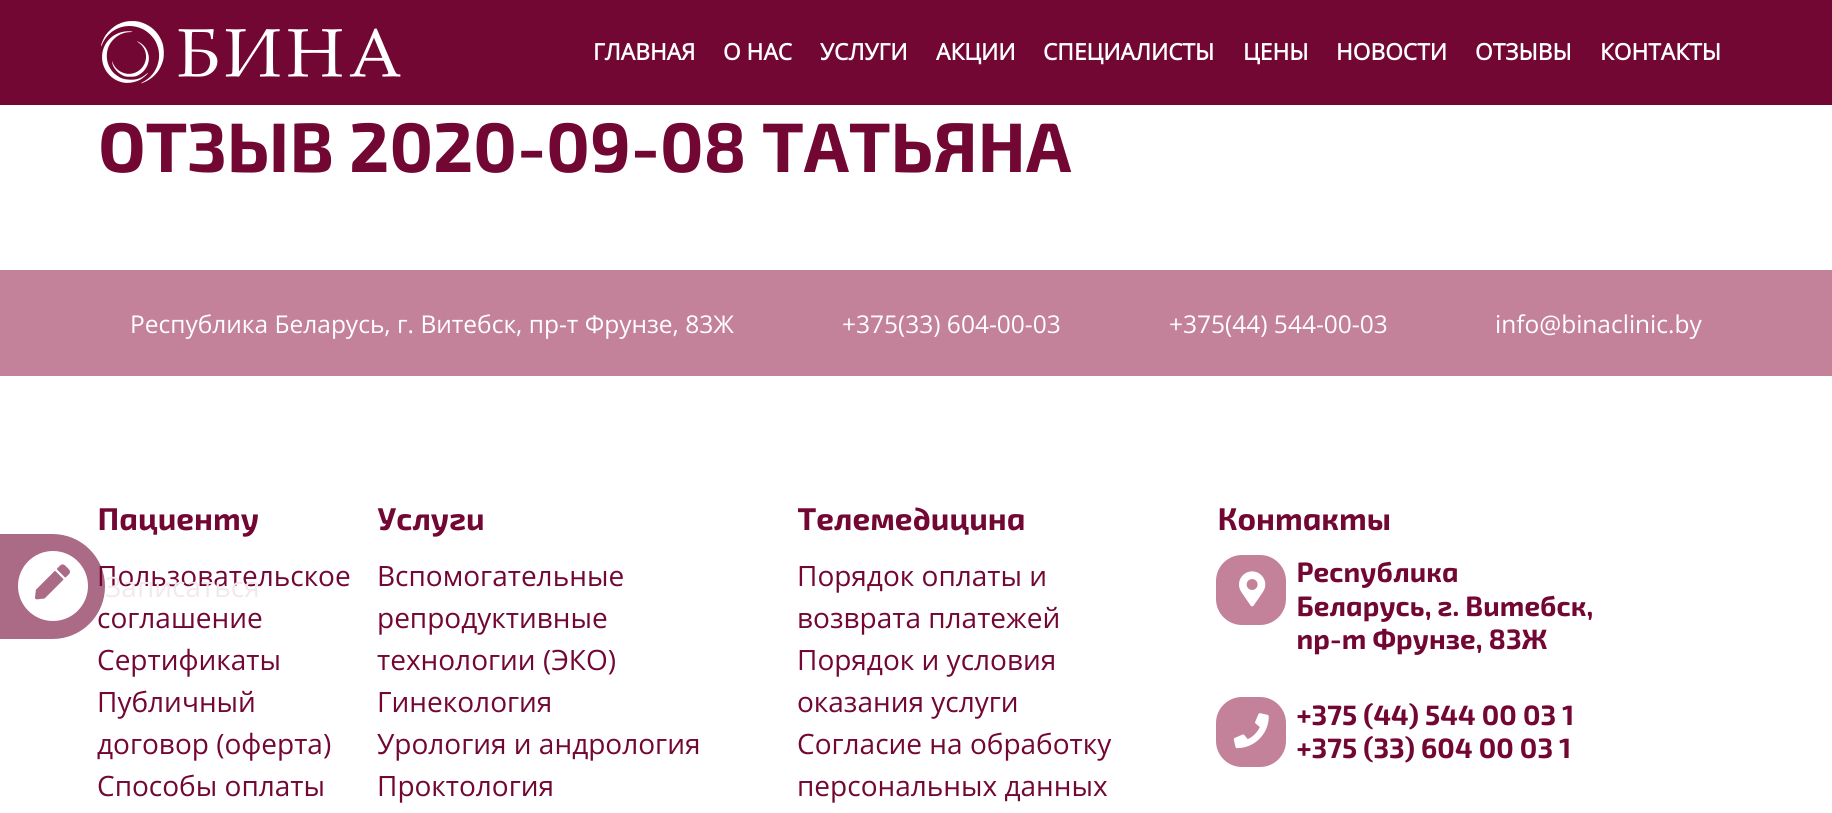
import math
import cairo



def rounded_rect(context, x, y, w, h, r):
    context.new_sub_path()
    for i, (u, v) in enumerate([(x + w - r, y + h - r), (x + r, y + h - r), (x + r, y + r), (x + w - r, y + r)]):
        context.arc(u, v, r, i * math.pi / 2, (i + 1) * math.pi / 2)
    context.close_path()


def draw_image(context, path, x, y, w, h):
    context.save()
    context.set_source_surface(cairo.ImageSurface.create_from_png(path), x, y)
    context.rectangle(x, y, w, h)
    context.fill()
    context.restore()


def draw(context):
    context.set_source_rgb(1, 1, 1)
    context.paint()
    context.set_source_rgb(115 / 255, 7 / 255, 52 / 255)
    context.rectangle(0, 0, 1832, 105)
    context.fill()
    draw_image(context, "images/1.png", 101, 21, 300, 63)
    context.set_source_rgb(196 / 255, 130 / 255, 154 / 255)
    context.rectangle(0, 270, 1832, 106)
    context.fill()
    rounded_rect(context, 1216, 555, 70, 70, 26)
    context.fill()
    draw_image(context, "images/2.png", 1239, 571, 27, 36)
    rounded_rect(context, 1216, 697, 70, 70, 26)
    context.fill()
    draw_image(context, "images/3.png", 1233, 713, 36, 36)
    context.select_font_face("Open Sans", cairo.FontSlant.NORMAL, cairo.FontWeight.BOLD)
    context.set_font_size(22.75)
    context.set_source_rgb(1, 1, 1)
    context.move_to(593, 60)
    context.show_text("ГЛАВНАЯ")
    context.move_to(723, 60)
    context.show_text("О НАС")
    context.move_to(820, 60)
    context.show_text("УСЛУГИ")
    context.move_to(936, 60)
    context.show_text("АКЦИИ")
    context.move_to(1043, 60)
    context.show_text("СПЕЦИАЛИСТЫ")
    context.move_to(1243, 60)
    context.show_text("ЦЕНЫ")
    context.move_to(1336, 60)
    context.show_text("НОВОСТИ")
    context.move_to(1475, 60)
    context.show_text("ОТЗЫВЫ")
    context.move_to(1600, 60)
    context.show_text("КОНТАКТЫ")
    context.select_font_face("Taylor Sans", cairo.FontSlant.ITALIC, cairo.FontWeight.BOLD)
    context.set_font_size(70)
    context.set_source_rgb(115 / 255, 7 / 255, 52 / 255)
    context.move_to(97, 172)
    context.show_text("ОТЗЫВ 2020-09-08 ТАТЬЯНА")
    context.select_font_face("Open Sans")
    context.set_font_size(24.5)
    context.set_source_rgb(1, 1, 1)
    context.move_to(130, 333)
    context.show_text("Республика Беларусь, г. Витебск, пр-т Фрунзе, 83Ж")
    context.move_to(842, 333)
    context.show_text("+375(33) 604-00-03")
    context.move_to(1169, 333)
    context.show_text("+375(44) 544-00-03")
    context.move_to(1495, 333)
    context.show_text("info@binaclinic.by")
    context.select_font_face("Taylor Sans", cairo.FontSlant.ITALIC, cairo.FontWeight.BOLD)
    context.set_font_size(31.5)
    context.set_source_rgb(115 / 255, 7 / 255, 52 / 255)
    context.move_to(97, 530)
    context.show_text("Пациенту")
    context.select_font_face("Open Sans")
    context.set_font_size(28)
    context.move_to(97, 586)
    context.show_text("Пользовательское")
    context.move_to(97, 628)
    context.show_text("соглашение")
    context.move_to(97, 670)
    context.show_text("Сертификаты")
    context.move_to(97, 712)
    context.show_text("Публичный")
    context.move_to(97, 754)
    context.show_text("договор (оферта)")
    context.move_to(97, 796)
    context.show_text("Способы оплаты")
    context.select_font_face("Taylor Sans", cairo.FontSlant.ITALIC, cairo.FontWeight.BOLD)
    context.set_font_size(31.5)
    context.move_to(377, 530)
    context.show_text("Услуги")
    context.select_font_face("Open Sans")
    context.set_font_size(28)
    context.move_to(377, 586)
    context.show_text("Вспомогательные")
    context.move_to(377, 628)
    context.show_text("репродуктивные")
    context.move_to(377, 670)
    context.show_text("технологии (ЭКО)")
    context.move_to(377, 712)
    context.show_text("Гинекология")
    context.move_to(377, 754)
    context.show_text("Урология и андрология")
    context.move_to(377, 796)
    context.show_text("Проктология")
    context.select_font_face("Taylor Sans", cairo.FontSlant.ITALIC, cairo.FontWeight.BOLD)
    context.set_font_size(31.5)
    context.move_to(797, 530)
    context.show_text("Телемедицина")
    context.select_font_face("Open Sans")
    context.set_font_size(28)
    context.move_to(797, 586)
    context.show_text("Порядок оплаты и")
    context.move_to(797, 628)
    context.show_text("возврата платежей")
    context.move_to(797, 670)
    context.show_text("Порядок и условия")
    context.move_to(797, 712)
    context.show_text("оказания услуги")
    context.move_to(797, 754)
    context.show_text("Согласие на обработку")
    context.move_to(797, 796)
    context.show_text("персональных данных")
    context.select_font_face("Taylor Sans", cairo.FontSlant.ITALIC, cairo.FontWeight.BOLD)
    context.set_font_size(31.5)
    context.move_to(1217, 530)
    context.show_text("Контакты")
    context.set_font_size(28)
    context.move_to(1296, 582)
    context.show_text("Республика")
    context.move_to(1296, 616)
    context.show_text("Беларусь, г. Витебск,")
    context.move_to(1296, 649)
    context.show_text("пр-т Фрунзе, 83Ж")
    context.move_to(1296, 725)
    context.show_text("+375 (44) 544 00 03 1")
    context.move_to(1296, 758)
    context.show_text("+375 (33) 604 00 03 1")
    context.set_source_rgba(115 / 255, 7 / 255, 52 / 255, 0.6)
    context.new_path()
    context.move_to(0, 534)
    context.line_to(52.5, 534)
    context.curve_to(81.5, 534, 105, 557.5, 105, 586.5)
    context.curve_to(105, 615.5, 81.5, 639, 52.5, 639)
    context.line_to(0, 639)
    context.close_path()
    context.fill()
    context.set_source_rgb(1, 1, 1)
    context.arc(53, 586, 35, 0, 2 * math.pi)
    context.fill()
    draw_image(context, "images/4.png", 35, 564, 35, 36)
    context.select_font_face("Open Sans")
    context.set_source_rgb(242 / 255, 233 / 255, 237 / 255)
    context.move_to(105, 597)
    context.show_text("Записаться")


surface = cairo.ImageSurface(cairo.Format.RGB24, 1832, 813)
context = cairo.Context(surface)
options = cairo.FontOptions()
options.set_hint_metrics(cairo.HintMetrics.OFF)
options.set_hint_style(cairo.HintStyle.NONE)
context.set_font_options(options)
context.set_miter_limit(4)
draw(context)
surface.write_to_png("out.png")
